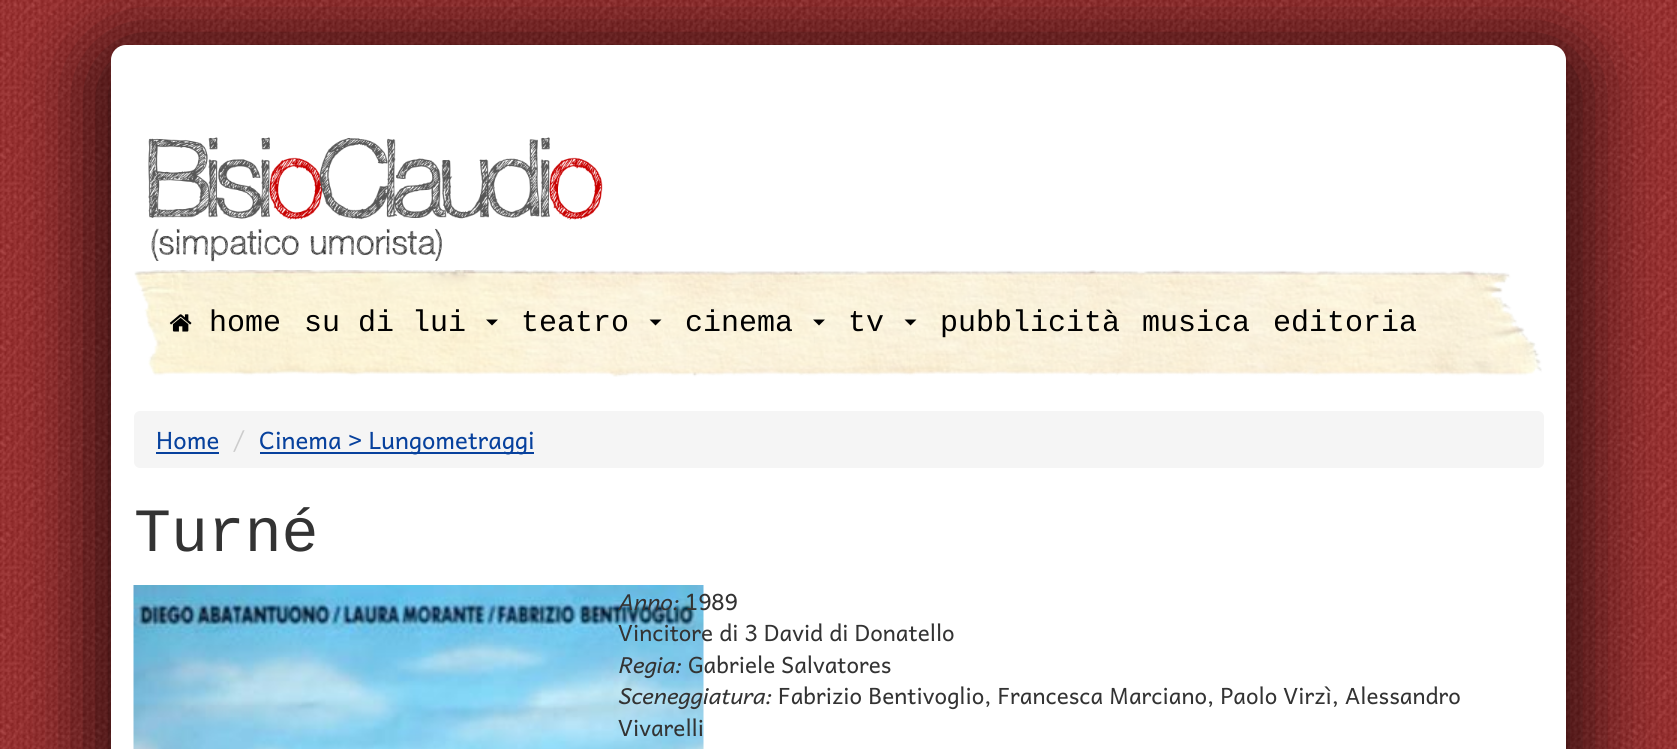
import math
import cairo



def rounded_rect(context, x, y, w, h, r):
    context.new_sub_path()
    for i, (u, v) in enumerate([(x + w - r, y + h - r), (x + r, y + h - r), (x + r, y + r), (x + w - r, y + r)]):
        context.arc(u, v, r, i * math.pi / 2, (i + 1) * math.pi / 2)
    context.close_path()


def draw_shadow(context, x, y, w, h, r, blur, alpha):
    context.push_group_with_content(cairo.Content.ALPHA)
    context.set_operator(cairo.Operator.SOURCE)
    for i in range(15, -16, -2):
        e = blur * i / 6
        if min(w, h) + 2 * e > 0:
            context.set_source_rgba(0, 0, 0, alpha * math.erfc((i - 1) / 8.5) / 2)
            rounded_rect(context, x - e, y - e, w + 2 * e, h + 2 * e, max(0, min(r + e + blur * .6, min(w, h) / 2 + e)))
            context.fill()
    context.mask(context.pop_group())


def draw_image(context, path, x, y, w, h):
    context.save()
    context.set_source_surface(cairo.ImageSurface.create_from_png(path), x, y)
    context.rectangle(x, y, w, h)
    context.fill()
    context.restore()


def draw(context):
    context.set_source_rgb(200 / 255, 0, 0)
    context.paint()
    draw_image(context, "images/1.png", 0, 0, 1677, 749)
    context.set_source_rgb(0, 0, 0)
    draw_shadow(context, 89, 38, 1500, 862, 38, 37.5, 0.65)
    context.set_source_rgb(1, 1, 1)
    rounded_rect(context, 111, 45, 1455, 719, 15)
    context.fill()
    draw_image(context, "images/2.png", 148, 137, 455, 125)
    draw_image(context, "images/3.png", 134, 270, 1408, 107)
    draw_image(context, "images/4.png", 169, 314, 23, 18)
    context.set_source_rgb(0, 0, 0)
    context.new_path()
    context.move_to(486, 319.5)
    context.line_to(498, 319.5)
    context.line_to(492, 325.5)
    context.close_path()
    context.fill()
    context.new_path()
    context.move_to(649.5, 319.5)
    context.line_to(661.5, 319.5)
    context.line_to(655.5, 325.5)
    context.close_path()
    context.fill()
    context.new_path()
    context.move_to(813, 319.5)
    context.line_to(825, 319.5)
    context.line_to(819, 325.5)
    context.close_path()
    context.fill()
    context.new_path()
    context.move_to(904.5, 319.5)
    context.line_to(916.5, 319.5)
    context.line_to(910.5, 325.5)
    context.close_path()
    context.fill()
    context.set_source_rgb(245 / 255, 245 / 255, 245 / 255)
    rounded_rect(context, 134, 411, 1410, 57, 6)
    context.fill()
    context.set_source_rgb(7 / 255, 65 / 255, 157 / 255)
    context.rectangle(156, 452, 63, 2)
    context.fill()
    context.rectangle(260, 452, 274, 2)
    context.fill()
    draw_image(context, "images/5.png", 133, 585, 571, 164)
    context.select_font_face("Liberation Mono")
    context.set_font_size(30)
    context.set_source_rgb(0, 0, 0)
    context.move_to(209, 331)
    context.show_text("home")
    context.move_to(304, 331)
    context.show_text("su di lui")
    context.move_to(521, 331)
    context.show_text("teatro")
    context.move_to(685, 331)
    context.show_text("cinema")
    context.move_to(848, 331)
    context.show_text("tv")
    context.move_to(940, 331)
    context.show_text("pubblicità")
    context.move_to(1142, 331)
    context.show_text("musica")
    context.move_to(1273, 331)
    context.show_text("editoria")
    context.select_font_face("Andika")
    context.set_font_size(24)
    context.set_source_rgb(7 / 255, 65 / 255, 157 / 255)
    context.move_to(156, 449)
    context.show_text("Home")
    context.set_source_rgb(204 / 255, 204 / 255, 204 / 255)
    context.move_to(233, 449)
    context.show_text("/")
    context.set_source_rgb(7 / 255, 65 / 255, 157 / 255)
    context.move_to(259, 449)
    context.show_text("Cinema > Lungometraggi")
    context.select_font_face("Liberation Mono")
    context.set_font_size(61.5)
    context.set_source_rgb(51 / 255, 51 / 255, 51 / 255)
    context.move_to(134, 551)
    context.show_text("Turné")
    context.select_font_face("Andika", cairo.FontSlant.ITALIC)
    context.set_font_size(22.5)
    context.move_to(618, 610)
    context.show_text("Anno:")
    context.select_font_face("Andika")
    context.move_to(685, 610)
    context.show_text("1989")
    context.move_to(618, 641)
    context.show_text("Vincitore di 3 David di Donatello")
    context.select_font_face("Andika", cairo.FontSlant.ITALIC)
    context.move_to(618, 673)
    context.show_text("Regia:")
    context.select_font_face("Andika")
    context.move_to(688, 673)
    context.show_text("Gabriele Salvatores")
    context.select_font_face("Andika", cairo.FontSlant.ITALIC)
    context.move_to(618, 704)
    context.show_text("Sceneggiatura:")
    context.select_font_face("Andika")
    context.move_to(778, 704)
    context.show_text("Fabrizio Bentivoglio, Francesca Marciano, Paolo Virzì, Alessandro")
    context.move_to(618, 736)
    context.show_text("Vivarelli")


surface = cairo.ImageSurface(cairo.Format.RGB24, 1677, 749)
context = cairo.Context(surface)
options = cairo.FontOptions()
options.set_hint_metrics(cairo.HintMetrics.OFF)
options.set_hint_style(cairo.HintStyle.NONE)
context.set_font_options(options)
context.set_miter_limit(4)
draw(context)
surface.write_to_png("out.png")
